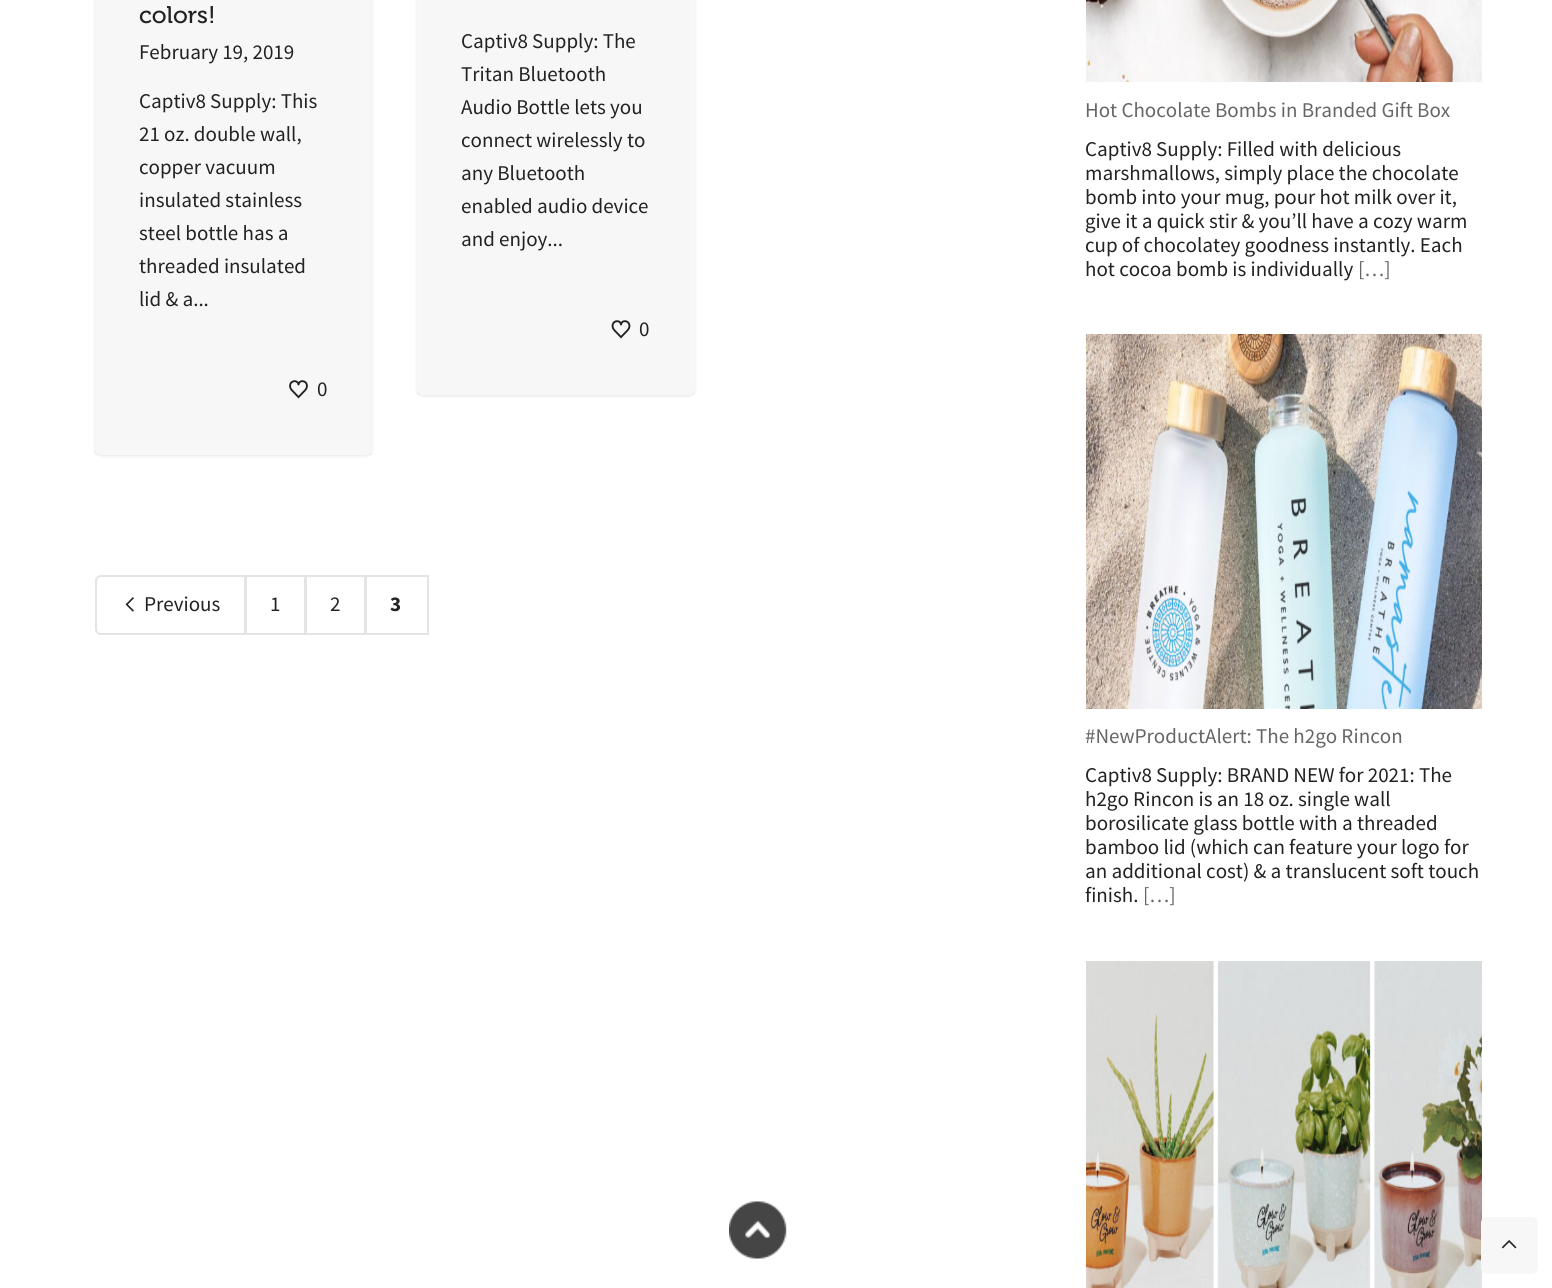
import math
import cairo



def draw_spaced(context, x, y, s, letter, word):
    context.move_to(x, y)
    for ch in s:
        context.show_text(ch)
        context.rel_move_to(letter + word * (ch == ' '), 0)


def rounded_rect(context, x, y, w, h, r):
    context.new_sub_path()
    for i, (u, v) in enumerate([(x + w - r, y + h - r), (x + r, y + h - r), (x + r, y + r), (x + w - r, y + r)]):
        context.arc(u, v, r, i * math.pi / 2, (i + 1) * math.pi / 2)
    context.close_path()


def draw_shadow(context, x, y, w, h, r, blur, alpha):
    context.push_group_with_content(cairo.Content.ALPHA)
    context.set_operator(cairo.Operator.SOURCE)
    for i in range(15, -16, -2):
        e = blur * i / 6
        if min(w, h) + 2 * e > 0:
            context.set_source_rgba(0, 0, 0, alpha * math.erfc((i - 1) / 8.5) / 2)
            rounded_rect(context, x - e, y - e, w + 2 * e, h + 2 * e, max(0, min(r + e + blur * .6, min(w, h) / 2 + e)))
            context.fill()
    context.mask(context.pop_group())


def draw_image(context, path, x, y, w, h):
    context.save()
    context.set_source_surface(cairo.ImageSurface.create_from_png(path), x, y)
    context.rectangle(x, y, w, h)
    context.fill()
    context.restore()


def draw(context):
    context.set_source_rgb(1, 1, 1)
    context.paint()
    context.set_source_rgb(247 / 255, 247 / 255, 247 / 255)
    context.rectangle(95, 0, 277, 455)
    context.fill()
    context.save()
    context.set_fill_rule(cairo.FillRule.EVEN_ODD)
    context.new_path()
    context.move_to(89, 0)
    context.line_to(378, 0)
    context.line_to(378, 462)
    context.line_to(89, 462)
    context.close_path()
    context.move_to(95, -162)
    context.line_to(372, -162)
    context.line_to(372, 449)
    context.curve_to(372, 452.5, 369.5, 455, 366, 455)
    context.line_to(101, 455)
    context.curve_to(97.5, 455, 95, 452.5, 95, 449)
    context.close_path()
    context.clip()
    context.set_source_rgb(0, 0, 0)
    draw_shadow(context, 95, -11, 277, 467, 6, 1.5, 0.1)
    context.restore()
    draw_image(context, "images/1.png", 289, 380, 19, 19)
    context.rectangle(417, 0, 278, 395)
    context.fill()
    context.save()
    context.set_fill_rule(cairo.FillRule.EVEN_ODD)
    context.new_path()
    context.move_to(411, 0)
    context.line_to(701, 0)
    context.line_to(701, 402)
    context.line_to(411, 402)
    context.close_path()
    context.move_to(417, -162)
    context.line_to(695, -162)
    context.line_to(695, 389)
    context.curve_to(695, 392.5, 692.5, 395, 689, 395)
    context.line_to(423, 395)
    context.curve_to(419.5, 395, 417, 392.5, 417, 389)
    context.close_path()
    context.clip()
    context.set_source_rgb(0, 0, 0)
    draw_shadow(context, 417, -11, 278, 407, 6, 1.5, 0.1)
    context.restore()
    draw_image(context, "images/2.png", 611, 320, 20, 19)
    context.new_path()
    context.move_to(101, 576)
    context.line_to(245, 576)
    context.line_to(245, 634)
    context.line_to(101, 634)
    context.curve_to(98, 634, 96, 632, 96, 629)
    context.line_to(96, 581)
    context.curve_to(96, 578, 98, 576, 101, 576)
    context.close_path()
    context.set_source_rgb(228 / 255, 228 / 255, 228 / 255)
    context.stroke()
    draw_image(context, "images/3.png", 125, 597, 9, 15)
    context.rectangle(246, 576, 59, 58)
    context.stroke()
    context.rectangle(366, 576, 62, 58)
    context.stroke()
    context.rectangle(306, 576, 59, 58)
    context.stroke()
    draw_image(context, "images/4.png", 1086, 0, 396, 82)
    draw_image(context, "images/5.png", 1086, 334, 396, 375)
    draw_image(context, "images/6.png", 1086, 961, 396, 327)
    draw_image(context, "images/7.png", 729, 1201, 58, 58)
    context.set_source_rgb(247 / 255, 247 / 255, 247 / 255)
    rounded_rect(context, 1481, 1217, 57, 57, 6)
    context.fill()
    draw_image(context, "images/8.png", 1501, 1240, 16, 9)
    context.select_font_face("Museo")
    context.set_font_size(24)
    context.set_source_rgb(34 / 255, 34 / 255, 34 / 255)
    context.move_to(139, 23)
    context.show_text("colors!")
    context.select_font_face("Source Sans Pro")
    context.set_font_size(21)
    context.move_to(139, 59)
    context.show_text("February 19, 2019")
    context.move_to(139, 108)
    context.show_text("Captiv8 Supply: This")
    context.move_to(139, 141)
    context.show_text("21 oz. double wall,")
    context.move_to(139, 174)
    context.show_text("copper vacuum")
    context.move_to(139, 207)
    context.show_text("insulated stainless")
    context.move_to(139, 240)
    context.show_text("steel bottle has a")
    context.move_to(139, 273)
    context.show_text("threaded insulated")
    context.move_to(139, 306)
    context.show_text("lid & a...")
    context.move_to(317, 396)
    context.show_text("0")
    context.move_to(461, 48)
    context.show_text("Captiv8 Supply: The")
    context.move_to(461, 81)
    context.show_text("Tritan Bluetooth")
    context.move_to(461, 114)
    context.show_text("Audio Bottle lets you")
    context.move_to(461, 147)
    context.show_text("connect wirelessly to")
    context.move_to(461, 180)
    context.show_text("any Bluetooth")
    context.move_to(461, 213)
    context.show_text("enabled audio device")
    context.move_to(461, 246)
    context.show_text("and enjoy...")
    context.move_to(639, 336)
    context.show_text("0")
    context.move_to(144, 611)
    context.show_text("Previous")
    context.move_to(270, 611)
    context.show_text("1")
    context.move_to(330, 611)
    context.show_text("2")
    context.select_font_face("Source Sans Pro", cairo.FontSlant.NORMAL, cairo.FontWeight.BOLD)
    draw_spaced(context, 390, 611, "3", 3, 0)
    context.select_font_face("Source Sans Pro")
    context.set_source_rgb(102 / 255, 102 / 255, 102 / 255)
    context.move_to(1085, 117)
    context.show_text("Hot Chocolate Bombs in Branded Gift Box")
    context.set_source_rgb(34 / 255, 34 / 255, 34 / 255)
    context.move_to(1085, 156)
    context.show_text("Captiv8 Supply: Filled with delicious")
    context.move_to(1085, 180)
    context.show_text("marshmallows, simply place the chocolate")
    context.move_to(1085, 204)
    context.show_text("bomb into your mug, pour hot milk over it,")
    context.move_to(1085, 228)
    context.show_text("give it a quick stir & you’ll have a cozy warm")
    context.move_to(1085, 252)
    context.show_text("cup of chocolatey goodness instantly. Each")
    context.move_to(1085, 276)
    context.show_text("hot cocoa bomb is individually")
    context.set_source_rgb(102 / 255, 102 / 255, 102 / 255)
    context.move_to(1358, 276)
    context.show_text("[…]")
    context.move_to(1085, 743)
    context.show_text("#NewProductAlert: The h2go Rincon")
    context.set_source_rgb(34 / 255, 34 / 255, 34 / 255)
    context.move_to(1085, 782)
    context.show_text("Captiv8 Supply: BRAND NEW for 2021: The")
    context.move_to(1085, 806)
    context.show_text("h2go Rincon is an 18 oz. single wall")
    context.move_to(1085, 830)
    context.show_text("borosilicate glass bottle with a threaded")
    context.move_to(1085, 854)
    context.show_text("bamboo lid (which can feature your logo for")
    context.move_to(1085, 878)
    context.show_text("an additional cost) & a translucent soft touch")
    context.move_to(1085, 902)
    context.show_text("finish.")
    context.set_source_rgb(102 / 255, 102 / 255, 102 / 255)
    context.move_to(1143, 902)
    context.show_text("[…]")


surface = cairo.ImageSurface(cairo.Format.RGB24, 1552, 1288)
context = cairo.Context(surface)
options = cairo.FontOptions()
options.set_hint_metrics(cairo.HintMetrics.OFF)
options.set_hint_style(cairo.HintStyle.NONE)
context.set_font_options(options)
context.set_miter_limit(4)
draw(context)
surface.write_to_png("out.png")
